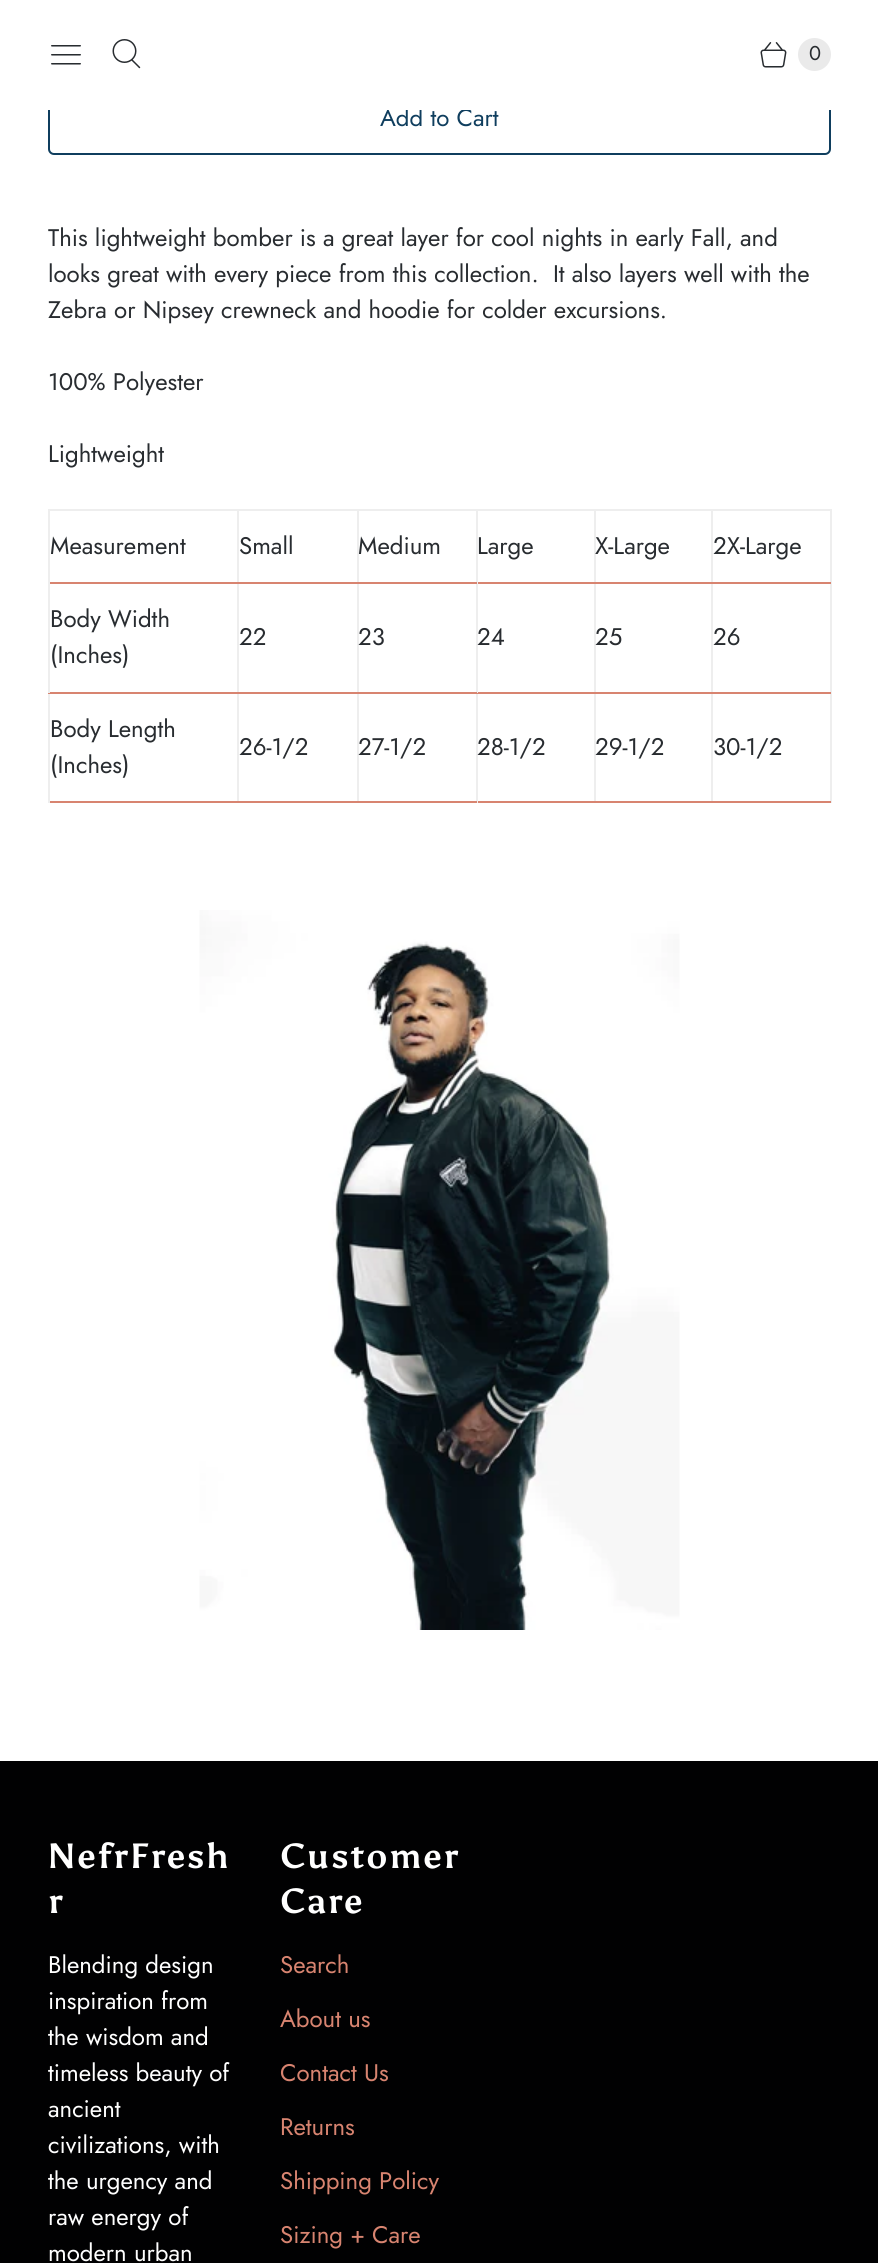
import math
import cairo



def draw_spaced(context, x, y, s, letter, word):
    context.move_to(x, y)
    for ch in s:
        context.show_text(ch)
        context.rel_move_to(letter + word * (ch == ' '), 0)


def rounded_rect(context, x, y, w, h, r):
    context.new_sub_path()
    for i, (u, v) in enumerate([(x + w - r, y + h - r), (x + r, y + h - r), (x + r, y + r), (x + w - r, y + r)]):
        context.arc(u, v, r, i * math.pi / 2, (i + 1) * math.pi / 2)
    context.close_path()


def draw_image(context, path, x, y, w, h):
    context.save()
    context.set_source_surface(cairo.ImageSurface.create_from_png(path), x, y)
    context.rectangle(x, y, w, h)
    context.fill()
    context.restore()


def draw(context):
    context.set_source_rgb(1, 1, 1)
    context.paint()
    draw_image(context, "images/1.png", 51, 45, 30, 20)
    draw_image(context, "images/2.png", 112, 39, 29, 30)
    draw_image(context, "images/3.png", 760, 42, 27, 26)
    context.set_source_rgb(234 / 255, 234 / 255, 234 / 255)
    context.arc(814.5, 54.5, 16.5, 0, 2 * math.pi)
    context.fill()
    rounded_rect(context, 49, 84, 781, 70, 5)
    context.set_source_rgb(15 / 255, 62 / 255, 94 / 255)
    context.stroke()
    context.set_source_rgb(238 / 255, 238 / 255, 238 / 255)
    context.rectangle(711, 509, 120, 2)
    context.fill()
    context.rectangle(830, 582, 2, 221)
    context.fill()
    context.rectangle(830, 509, 2, 75)
    context.fill()
    context.set_source_rgb(216 / 255, 132 / 255, 112 / 255)
    context.rectangle(711, 801, 120, 2)
    context.fill()
    context.set_source_rgb(238 / 255, 238 / 255, 238 / 255)
    context.rectangle(711, 692, 2, 111)
    context.fill()
    context.set_source_rgb(216 / 255, 132 / 255, 112 / 255)
    context.rectangle(711, 692, 120, 2)
    context.fill()
    context.set_source_rgb(238 / 255, 238 / 255, 238 / 255)
    context.rectangle(711, 582, 2, 111)
    context.fill()
    context.set_source_rgb(216 / 255, 132 / 255, 112 / 255)
    context.rectangle(711, 582, 120, 2)
    context.fill()
    context.set_source_rgb(238 / 255, 238 / 255, 238 / 255)
    context.rectangle(711, 509, 2, 75)
    context.fill()
    context.rectangle(594, 509, 119, 2)
    context.fill()
    context.set_source_rgb(216 / 255, 132 / 255, 112 / 255)
    context.rectangle(594, 801, 119, 2)
    context.fill()
    context.set_source_rgb(238 / 255, 238 / 255, 238 / 255)
    context.rectangle(594, 692, 2, 111)
    context.fill()
    context.set_source_rgb(216 / 255, 132 / 255, 112 / 255)
    context.rectangle(594, 692, 119, 2)
    context.fill()
    context.set_source_rgb(238 / 255, 238 / 255, 238 / 255)
    context.rectangle(594, 582, 2, 111)
    context.fill()
    context.set_source_rgb(216 / 255, 132 / 255, 112 / 255)
    context.rectangle(594, 582, 119, 2)
    context.fill()
    context.set_source_rgb(238 / 255, 238 / 255, 238 / 255)
    context.rectangle(594, 509, 2, 75)
    context.fill()
    context.rectangle(476, 509, 120, 2)
    context.fill()
    context.set_source_rgb(216 / 255, 132 / 255, 112 / 255)
    context.rectangle(476, 801, 120, 2)
    context.fill()
    context.set_source_rgb(238 / 255, 238 / 255, 238 / 255)
    context.rectangle(476, 692, 2, 111)
    context.fill()
    context.set_source_rgb(216 / 255, 132 / 255, 112 / 255)
    context.rectangle(476, 692, 120, 2)
    context.fill()
    context.set_source_rgb(238 / 255, 238 / 255, 238 / 255)
    context.rectangle(476, 582, 2, 111)
    context.fill()
    context.set_source_rgb(216 / 255, 132 / 255, 112 / 255)
    context.rectangle(476, 582, 120, 2)
    context.fill()
    context.set_source_rgb(238 / 255, 238 / 255, 238 / 255)
    context.rectangle(476, 509, 2, 75)
    context.fill()
    context.rectangle(357, 509, 120, 2)
    context.fill()
    context.set_source_rgb(216 / 255, 132 / 255, 112 / 255)
    context.rectangle(357, 801, 120, 2)
    context.fill()
    context.set_source_rgb(238 / 255, 238 / 255, 238 / 255)
    context.rectangle(357, 692, 2, 111)
    context.fill()
    context.set_source_rgb(216 / 255, 132 / 255, 112 / 255)
    context.rectangle(357, 692, 120, 2)
    context.fill()
    context.set_source_rgb(238 / 255, 238 / 255, 238 / 255)
    context.rectangle(357, 582, 2, 111)
    context.fill()
    context.set_source_rgb(216 / 255, 132 / 255, 112 / 255)
    context.rectangle(357, 582, 120, 2)
    context.fill()
    context.set_source_rgb(238 / 255, 238 / 255, 238 / 255)
    context.rectangle(357, 509, 2, 75)
    context.fill()
    context.rectangle(237, 509, 122, 2)
    context.fill()
    context.set_source_rgb(216 / 255, 132 / 255, 112 / 255)
    context.rectangle(237, 801, 122, 2)
    context.fill()
    context.set_source_rgb(238 / 255, 238 / 255, 238 / 255)
    context.rectangle(237, 692, 2, 111)
    context.fill()
    context.set_source_rgb(216 / 255, 132 / 255, 112 / 255)
    context.rectangle(237, 692, 122, 2)
    context.fill()
    context.set_source_rgb(238 / 255, 238 / 255, 238 / 255)
    context.rectangle(237, 582, 2, 111)
    context.fill()
    context.set_source_rgb(216 / 255, 132 / 255, 112 / 255)
    context.rectangle(237, 582, 122, 2)
    context.fill()
    context.set_source_rgb(238 / 255, 238 / 255, 238 / 255)
    context.rectangle(237, 509, 2, 75)
    context.fill()
    context.rectangle(48, 509, 191, 2)
    context.fill()
    context.set_source_rgb(216 / 255, 132 / 255, 112 / 255)
    context.rectangle(48, 801, 191, 2)
    context.fill()
    context.set_source_rgb(238 / 255, 238 / 255, 238 / 255)
    context.rectangle(48, 692, 2, 111)
    context.fill()
    context.set_source_rgb(216 / 255, 132 / 255, 112 / 255)
    context.rectangle(48, 692, 191, 2)
    context.fill()
    context.set_source_rgb(238 / 255, 238 / 255, 238 / 255)
    context.rectangle(48, 582, 2, 111)
    context.fill()
    context.set_source_rgb(216 / 255, 132 / 255, 112 / 255)
    context.rectangle(48, 582, 191, 2)
    context.fill()
    context.set_source_rgb(238 / 255, 238 / 255, 238 / 255)
    context.rectangle(48, 509, 2, 75)
    context.fill()
    draw_image(context, "images/4.png", 199, 910, 481, 720)
    context.set_source_rgb(1 / 255, 1 / 255, 2 / 255)
    context.rectangle(0, 1761, 878, 502)
    context.fill()
    context.select_font_face("Jost")
    context.set_font_size(20)
    context.set_source_rgb(40 / 255, 44 / 255, 48 / 255)
    context.move_to(809, 60)
    context.show_text("0")
    context.set_font_size(24)
    context.set_source_rgb(15 / 255, 62 / 255, 94 / 255)
    context.move_to(380, 126)
    context.show_text("Add to Cart")
    context.set_source_rgb(1, 1, 1)
    context.rectangle(48, 83, 783, 27)
    context.fill()
    context.set_source_rgb(40 / 255, 44 / 255, 48 / 255)
    context.move_to(48, 246)
    context.show_text("This lightweight bomber is a great layer for cool nights in early Fall, and")
    context.move_to(48, 282)
    context.show_text("looks great with every piece from this collection.  It also layers well with the")
    context.move_to(48, 318)
    context.show_text("Zebra or Nipsey crewneck and hoodie for colder excursions.")
    context.move_to(48, 390)
    context.show_text("100% Polyester")
    context.move_to(48, 462)
    context.show_text("Lightweight")
    context.move_to(50, 554)
    context.show_text("Measurement")
    context.move_to(239, 554)
    context.show_text("Small")
    context.move_to(358, 554)
    context.show_text("Medium")
    context.move_to(477, 554)
    context.show_text("Large")
    context.move_to(595, 554)
    context.show_text("X-Large")
    context.move_to(713, 554)
    context.show_text("2X-Large")
    context.move_to(50, 627)
    context.show_text("Body Width")
    context.move_to(50, 663)
    context.show_text("(Inches)")
    context.move_to(239, 645)
    context.show_text("22")
    context.move_to(358, 645)
    context.show_text("23")
    context.move_to(477, 645)
    context.show_text("24")
    context.move_to(595, 645)
    context.show_text("25")
    context.move_to(713, 645)
    context.show_text("26")
    context.move_to(50, 737)
    context.show_text("Body Length")
    context.move_to(50, 773)
    context.show_text("(Inches)")
    context.move_to(239, 755)
    context.show_text("26-1/2")
    context.move_to(358, 755)
    context.show_text("27-1/2")
    context.move_to(477, 755)
    context.show_text("28-1/2")
    context.move_to(595, 755)
    context.show_text("29-1/2")
    context.move_to(713, 755)
    context.show_text("30-1/2")
    context.select_font_face("Asul", cairo.FontSlant.NORMAL, cairo.FontWeight.BOLD)
    context.set_font_size(35)
    context.set_source_rgb(1, 1, 1)
    draw_spaced(context, 48, 1868, "NefrFresh", 1.5, 0)
    draw_spaced(context, 48, 1913, "r", 1.5, 0)
    context.select_font_face("Jost")
    context.set_font_size(24)
    context.move_to(48, 1973)
    context.show_text("Blending design")
    context.move_to(48, 2009)
    context.show_text("inspiration from")
    context.move_to(48, 2045)
    context.show_text("the wisdom and")
    context.move_to(48, 2081)
    context.show_text("timeless beauty of")
    context.move_to(48, 2117)
    context.show_text("ancient")
    context.move_to(48, 2153)
    context.show_text("civilizations, with")
    context.move_to(48, 2189)
    context.show_text("the urgency and")
    context.move_to(48, 2225)
    context.show_text("raw energy of")
    context.move_to(48, 2261)
    context.show_text("modern urban")
    context.select_font_face("Asul", cairo.FontSlant.NORMAL, cairo.FontWeight.BOLD)
    context.set_font_size(35)
    draw_spaced(context, 280, 1868, "Customer", 1.5, 0)
    draw_spaced(context, 280, 1913, "Care", 1.5, 0)
    context.select_font_face("Jost")
    context.set_font_size(24)
    context.set_source_rgb(216 / 255, 132 / 255, 112 / 255)
    context.move_to(280, 1973)
    context.show_text("Search")
    context.move_to(280, 2027)
    context.show_text("About us")
    context.move_to(280, 2081)
    context.show_text("Contact Us")
    context.move_to(280, 2135)
    context.show_text("Returns")
    context.move_to(280, 2189)
    context.show_text("Shipping Policy")
    context.move_to(280, 2243)
    context.show_text("Sizing + Care")


surface = cairo.ImageSurface(cairo.Format.RGB24, 878, 2263)
context = cairo.Context(surface)
options = cairo.FontOptions()
options.set_hint_metrics(cairo.HintMetrics.OFF)
options.set_hint_style(cairo.HintStyle.NONE)
context.set_font_options(options)
context.set_miter_limit(4)
draw(context)
surface.write_to_png("out.png")
